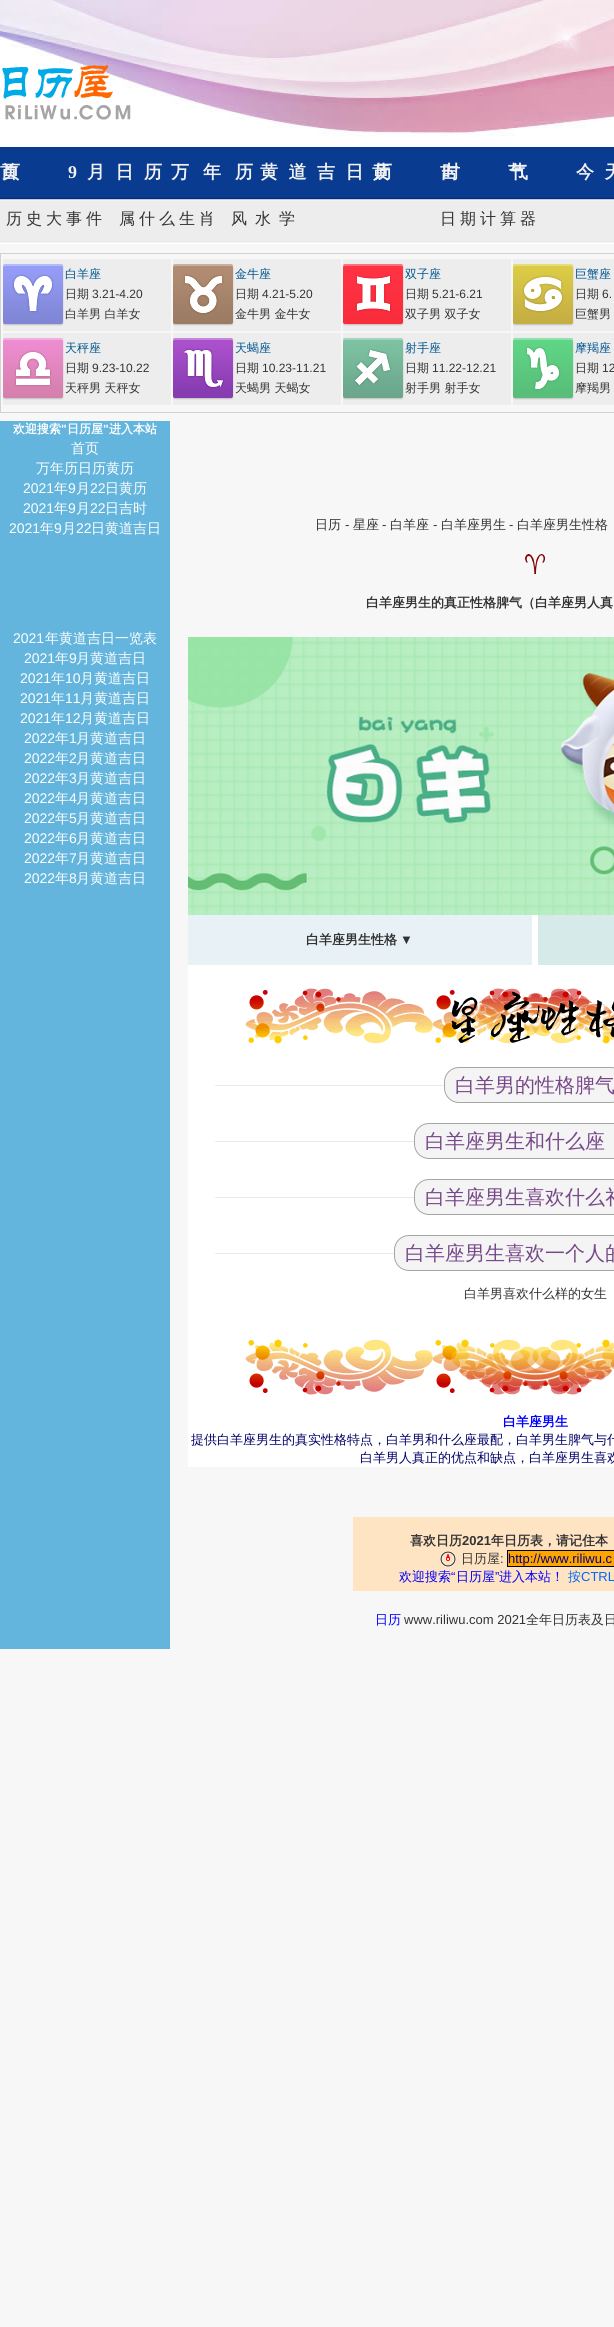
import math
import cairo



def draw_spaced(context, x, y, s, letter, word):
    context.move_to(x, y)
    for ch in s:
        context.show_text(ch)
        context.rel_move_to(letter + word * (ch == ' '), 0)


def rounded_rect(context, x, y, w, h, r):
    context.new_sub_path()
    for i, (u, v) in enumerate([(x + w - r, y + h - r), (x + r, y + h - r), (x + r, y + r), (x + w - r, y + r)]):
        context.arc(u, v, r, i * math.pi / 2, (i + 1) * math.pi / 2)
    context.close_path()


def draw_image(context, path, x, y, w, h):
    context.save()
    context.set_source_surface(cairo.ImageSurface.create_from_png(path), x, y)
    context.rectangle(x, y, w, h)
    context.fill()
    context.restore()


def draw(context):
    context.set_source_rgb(247 / 255, 247 / 255, 247 / 255)
    context.paint()
    draw_image(context, "images/1.png", 0, 0, 614, 145)
    draw_image(context, "images/2.png", 2, 65, 129, 55)
    draw_image(context, "images/3.png", 0, 145, 614, 99)
    context.rectangle(0.5, 253.5, 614, 159)
    context.set_source_rgb(210 / 255, 210 / 255, 210 / 255)
    context.set_line_width(1)
    context.stroke()
    context.set_source_rgb(237 / 255, 237 / 255, 237 / 255)
    context.rectangle(3, 259, 168, 72)
    context.fill()
    draw_image(context, "images/4.png", 3, 264, 61, 62)
    context.rectangle(173, 259, 168, 72)
    context.fill()
    draw_image(context, "images/5.png", 173, 264, 61, 62)
    context.rectangle(343, 259, 168, 72)
    context.fill()
    draw_image(context, "images/6.png", 343, 264, 61, 62)
    context.rectangle(513, 259, 101, 72)
    context.fill()
    draw_image(context, "images/7.png", 513, 264, 61, 62)
    context.rectangle(3, 333, 168, 72)
    context.fill()
    draw_image(context, "images/8.png", 3, 338, 61, 62)
    context.rectangle(173, 333, 168, 72)
    context.fill()
    draw_image(context, "images/9.png", 173, 338, 61, 62)
    context.rectangle(343, 333, 168, 72)
    context.fill()
    draw_image(context, "images/10.png", 343, 338, 61, 62)
    context.rectangle(513, 333, 101, 72)
    context.fill()
    draw_image(context, "images/11.png", 513, 338, 61, 62)
    context.set_source_rgb(100 / 255, 181 / 255, 221 / 255)
    context.rectangle(0, 421, 170, 1228)
    context.fill()
    draw_image(context, "images/12.png", 525, 554, 20, 20)
    draw_image(context, "images/13.png", 188, 637, 426, 278)
    context.set_source_rgb(232 / 255, 241 / 255, 246 / 255)
    context.rectangle(188, 915, 344, 50)
    context.fill()
    context.set_source_rgb(1, 1, 1)
    context.rectangle(532, 915, 6, 50)
    context.fill()
    context.set_source_rgb(214 / 255, 234 / 255, 233 / 255)
    context.rectangle(538, 915, 76, 50)
    context.fill()
    context.set_source_rgb(1, 1, 1)
    context.rectangle(188, 965, 426, 502)
    context.fill()
    draw_image(context, "images/14.png", 245, 988, 369, 56)
    context.set_source_rgb(234 / 255, 234 / 255, 234 / 255)
    context.rectangle(215, 1085, 229, 1)
    context.fill()
    context.set_source_rgb(244 / 255, 244 / 255, 244 / 255)
    rounded_rect(context, 444.5, 1067.5, 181, 35, 14.5)
    context.fill_preserve()
    context.set_source_rgb(165 / 255, 165 / 255, 165 / 255)
    context.stroke()
    context.set_source_rgb(234 / 255, 234 / 255, 234 / 255)
    context.rectangle(215, 1141, 199, 1)
    context.fill()
    context.set_source_rgb(244 / 255, 244 / 255, 244 / 255)
    rounded_rect(context, 414.5, 1123.5, 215, 35, 14.5)
    context.fill_preserve()
    context.set_source_rgb(165 / 255, 165 / 255, 165 / 255)
    context.stroke()
    context.set_source_rgb(234 / 255, 234 / 255, 234 / 255)
    context.rectangle(215, 1197, 199, 1)
    context.fill()
    context.set_source_rgb(244 / 255, 244 / 255, 244 / 255)
    rounded_rect(context, 414.5, 1179.5, 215, 35, 14.5)
    context.fill_preserve()
    context.set_source_rgb(165 / 255, 165 / 255, 165 / 255)
    context.stroke()
    context.set_source_rgb(234 / 255, 234 / 255, 234 / 255)
    context.rectangle(215, 1253, 179, 1)
    context.fill()
    context.set_source_rgb(244 / 255, 244 / 255, 244 / 255)
    rounded_rect(context, 394.5, 1235.5, 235, 35, 14.5)
    context.fill_preserve()
    context.set_source_rgb(165 / 255, 165 / 255, 165 / 255)
    context.stroke()
    draw_image(context, "images/15.png", 245, 1339, 369, 56)
    context.set_source_rgb(1, 228 / 255, 196 / 255)
    context.rectangle(353, 1517, 261, 74)
    context.fill()
    draw_image(context, "images/16.png", 440, 1551, 16, 16)
    context.set_source_rgb(1, 165 / 255, 0)
    context.rectangle(507.5, 1550.5, 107, 16)
    context.fill_preserve()
    context.set_source_rgb(0, 0, 0)
    context.stroke()
    context.select_font_face("WenQuanYi Zen Hei", cairo.FontSlant.NORMAL, cairo.FontWeight.BOLD)
    context.set_font_size(18)
    context.set_source_rgb(241 / 255, 241 / 255, 241 / 255)
    draw_spaced(context, 0, 178, "首页", -16, 0)
    context.select_font_face("Liberation Serif", cairo.FontSlant.NORMAL, cairo.FontWeight.BOLD)
    draw_spaced(context, 68, 178, "9", 10.5, 0)
    context.select_font_face("WenQuanYi Zen Hei", cairo.FontSlant.NORMAL, cairo.FontWeight.BOLD)
    draw_spaced(context, 87, 178, "月日历", 10.5, 0)
    draw_spaced(context, 171, 178, "万年历", 14, 0)
    draw_spaced(context, 260, 178, "黄道吉日", 10.5, 0)
    draw_spaced(context, 372, 178, "黄历", -16, 0)
    draw_spaced(context, 440, 178, "吉时", -16, 0)
    draw_spaced(context, 508, 178, "节气", -16, 0)
    draw_spaced(context, 576, 178, "今天", 10.5, 0)
    context.select_font_face("WenQuanYi Zen Hei Medium")
    context.set_font_size(16)
    context.set_source_rgb(51 / 255, 51 / 255, 51 / 255)
    draw_spaced(context, 6, 224, "历史大事件", 4, 0)
    draw_spaced(context, 119, 224, "属什么生肖", 4, 0)
    draw_spaced(context, 231, 224, "风水学", 8, 0)
    draw_spaced(context, 440, 224, "日期计算器", 4, 0)
    context.set_font_size(12)
    context.set_source_rgb(0, 85 / 255, 144 / 255)
    context.move_to(65, 278)
    context.show_text("白羊座")
    context.set_source_rgb(51 / 255, 51 / 255, 51 / 255)
    context.move_to(65, 298)
    context.show_text("日期")
    context.select_font_face("Liberation Sans")
    context.move_to(92, 298)
    context.show_text("3.21-4.20")
    context.select_font_face("WenQuanYi Zen Hei Medium")
    context.move_to(65, 318)
    context.show_text("白羊男 白羊女")
    context.set_source_rgb(0, 85 / 255, 144 / 255)
    context.move_to(235, 278)
    context.show_text("金牛座")
    context.set_source_rgb(51 / 255, 51 / 255, 51 / 255)
    context.move_to(235, 298)
    context.show_text("日期")
    context.select_font_face("Liberation Sans")
    context.move_to(262, 298)
    context.show_text("4.21-5.20")
    context.select_font_face("WenQuanYi Zen Hei Medium")
    context.move_to(235, 318)
    context.show_text("金牛男 金牛女")
    context.set_source_rgb(0, 85 / 255, 144 / 255)
    context.move_to(405, 278)
    context.show_text("双子座")
    context.set_source_rgb(51 / 255, 51 / 255, 51 / 255)
    context.move_to(405, 298)
    context.show_text("日期")
    context.select_font_face("Liberation Sans")
    context.move_to(432, 298)
    context.show_text("5.21-6.21")
    context.select_font_face("WenQuanYi Zen Hei Medium")
    context.move_to(405, 318)
    context.show_text("双子男 双子女")
    context.set_source_rgb(0, 85 / 255, 144 / 255)
    context.move_to(575, 278)
    context.show_text("巨蟹座")
    context.set_source_rgb(51 / 255, 51 / 255, 51 / 255)
    context.move_to(575, 298)
    context.show_text("日期")
    context.select_font_face("Liberation Sans")
    context.move_to(602, 298)
    context.show_text("6.")
    context.select_font_face("WenQuanYi Zen Hei Medium")
    context.move_to(575, 318)
    context.show_text("巨蟹男")
    context.set_source_rgb(0, 85 / 255, 144 / 255)
    context.move_to(65, 352)
    context.show_text("天秤座")
    context.set_source_rgb(51 / 255, 51 / 255, 51 / 255)
    context.move_to(65, 372)
    context.show_text("日期")
    context.select_font_face("Liberation Sans")
    context.move_to(92, 372)
    context.show_text("9.23-10.22")
    context.select_font_face("WenQuanYi Zen Hei Medium")
    context.move_to(65, 392)
    context.show_text("天秤男 天秤女")
    context.set_source_rgb(0, 85 / 255, 144 / 255)
    context.move_to(235, 352)
    context.show_text("天蝎座")
    context.set_source_rgb(51 / 255, 51 / 255, 51 / 255)
    context.move_to(235, 372)
    context.show_text("日期")
    context.select_font_face("Liberation Sans")
    context.move_to(262, 372)
    context.show_text("10.23-11.21")
    context.select_font_face("WenQuanYi Zen Hei Medium")
    context.move_to(235, 392)
    context.show_text("天蝎男 天蝎女")
    context.set_source_rgb(0, 85 / 255, 144 / 255)
    context.move_to(405, 352)
    context.show_text("射手座")
    context.set_source_rgb(51 / 255, 51 / 255, 51 / 255)
    context.move_to(405, 372)
    context.show_text("日期")
    context.select_font_face("Liberation Sans")
    context.move_to(432, 372)
    context.show_text("11.22-12.21")
    context.select_font_face("WenQuanYi Zen Hei Medium")
    context.move_to(405, 392)
    context.show_text("射手男 射手女")
    context.set_source_rgb(0, 85 / 255, 144 / 255)
    context.move_to(575, 352)
    context.show_text("摩羯座")
    context.set_source_rgb(51 / 255, 51 / 255, 51 / 255)
    context.move_to(575, 372)
    context.show_text("日期")
    context.select_font_face("Liberation Sans")
    context.move_to(602, 372)
    context.show_text("12")
    context.select_font_face("WenQuanYi Zen Hei Medium")
    context.move_to(575, 392)
    context.show_text("摩羯男")
    context.select_font_face("WenQuanYi Zen Hei", cairo.FontSlant.NORMAL, cairo.FontWeight.BOLD)
    context.set_source_rgb(1, 1, 1)
    context.move_to(13, 433)
    context.show_text("欢迎搜索")
    context.select_font_face("Liberation Sans", cairo.FontSlant.NORMAL, cairo.FontWeight.BOLD)
    context.move_to(61, 433)
    context.show_text("\"")
    context.select_font_face("WenQuanYi Zen Hei", cairo.FontSlant.NORMAL, cairo.FontWeight.BOLD)
    context.move_to(67, 433)
    context.show_text("日历屋")
    context.select_font_face("Liberation Sans", cairo.FontSlant.NORMAL, cairo.FontWeight.BOLD)
    context.move_to(103, 433)
    context.show_text("\"")
    context.select_font_face("WenQuanYi Zen Hei", cairo.FontSlant.NORMAL, cairo.FontWeight.BOLD)
    context.move_to(109, 433)
    context.show_text("进入本站")
    context.select_font_face("WenQuanYi Zen Hei Medium")
    context.set_font_size(14)
    context.move_to(71, 453)
    context.show_text("首页")
    context.move_to(36, 473)
    context.show_text("万年历日历黄历")
    context.select_font_face("Liberation Sans")
    context.move_to(23, 493)
    context.show_text("2021")
    context.select_font_face("WenQuanYi Zen Hei Medium")
    context.move_to(54, 493)
    context.show_text("年")
    context.select_font_face("Liberation Sans")
    context.move_to(68, 493)
    context.show_text("9")
    context.select_font_face("WenQuanYi Zen Hei Medium")
    context.move_to(76, 493)
    context.show_text("月")
    context.select_font_face("Liberation Sans")
    context.move_to(90, 493)
    context.show_text("22")
    context.select_font_face("WenQuanYi Zen Hei Medium")
    context.move_to(105, 493)
    context.show_text("日黄历")
    context.select_font_face("Liberation Sans")
    context.move_to(23, 513)
    context.show_text("2021")
    context.select_font_face("WenQuanYi Zen Hei Medium")
    context.move_to(54, 513)
    context.show_text("年")
    context.select_font_face("Liberation Sans")
    context.move_to(68, 513)
    context.show_text("9")
    context.select_font_face("WenQuanYi Zen Hei Medium")
    context.move_to(76, 513)
    context.show_text("月")
    context.select_font_face("Liberation Sans")
    context.move_to(90, 513)
    context.show_text("22")
    context.select_font_face("WenQuanYi Zen Hei Medium")
    context.move_to(105, 513)
    context.show_text("日吉时")
    context.select_font_face("Liberation Sans")
    context.move_to(9, 533)
    context.show_text("2021")
    context.select_font_face("WenQuanYi Zen Hei Medium")
    context.move_to(40, 533)
    context.show_text("年")
    context.select_font_face("Liberation Sans")
    context.move_to(54, 533)
    context.show_text("9")
    context.select_font_face("WenQuanYi Zen Hei Medium")
    context.move_to(62, 533)
    context.show_text("月")
    context.select_font_face("Liberation Sans")
    context.move_to(76, 533)
    context.show_text("22")
    context.select_font_face("WenQuanYi Zen Hei Medium")
    context.move_to(91, 533)
    context.show_text("日黄道吉日")
    context.select_font_face("Liberation Sans")
    context.move_to(13, 643)
    context.show_text("2021")
    context.select_font_face("WenQuanYi Zen Hei Medium")
    context.move_to(45, 643)
    context.show_text("年黄道吉日一览表")
    context.select_font_face("Liberation Sans")
    context.move_to(24, 663)
    context.show_text("2021")
    context.select_font_face("WenQuanYi Zen Hei Medium")
    context.move_to(55, 663)
    context.show_text("年")
    context.select_font_face("Liberation Sans")
    context.move_to(69, 663)
    context.show_text("9")
    context.select_font_face("WenQuanYi Zen Hei Medium")
    context.move_to(76, 663)
    context.show_text("月黄道吉日")
    context.select_font_face("Liberation Sans")
    context.move_to(20, 683)
    context.show_text("2021")
    context.select_font_face("WenQuanYi Zen Hei Medium")
    context.move_to(51, 683)
    context.show_text("年")
    context.select_font_face("Liberation Sans")
    context.move_to(65, 683)
    context.show_text("10")
    context.select_font_face("WenQuanYi Zen Hei Medium")
    context.move_to(80, 683)
    context.show_text("月黄道吉日")
    context.select_font_face("Liberation Sans")
    context.move_to(20, 703)
    context.show_text("2021")
    context.select_font_face("WenQuanYi Zen Hei Medium")
    context.move_to(51, 703)
    context.show_text("年")
    context.select_font_face("Liberation Sans")
    context.move_to(65, 703)
    context.show_text("11")
    context.select_font_face("WenQuanYi Zen Hei Medium")
    context.move_to(80, 703)
    context.show_text("月黄道吉日")
    context.select_font_face("Liberation Sans")
    context.move_to(20, 723)
    context.show_text("2021")
    context.select_font_face("WenQuanYi Zen Hei Medium")
    context.move_to(51, 723)
    context.show_text("年")
    context.select_font_face("Liberation Sans")
    context.move_to(65, 723)
    context.show_text("12")
    context.select_font_face("WenQuanYi Zen Hei Medium")
    context.move_to(80, 723)
    context.show_text("月黄道吉日")
    context.select_font_face("Liberation Sans")
    context.move_to(24, 743)
    context.show_text("2022")
    context.select_font_face("WenQuanYi Zen Hei Medium")
    context.move_to(55, 743)
    context.show_text("年")
    context.select_font_face("Liberation Sans")
    context.move_to(69, 743)
    context.show_text("1")
    context.select_font_face("WenQuanYi Zen Hei Medium")
    context.move_to(76, 743)
    context.show_text("月黄道吉日")
    context.select_font_face("Liberation Sans")
    context.move_to(24, 763)
    context.show_text("2022")
    context.select_font_face("WenQuanYi Zen Hei Medium")
    context.move_to(55, 763)
    context.show_text("年")
    context.select_font_face("Liberation Sans")
    context.move_to(69, 763)
    context.show_text("2")
    context.select_font_face("WenQuanYi Zen Hei Medium")
    context.move_to(76, 763)
    context.show_text("月黄道吉日")
    context.select_font_face("Liberation Sans")
    context.move_to(24, 783)
    context.show_text("2022")
    context.select_font_face("WenQuanYi Zen Hei Medium")
    context.move_to(55, 783)
    context.show_text("年")
    context.select_font_face("Liberation Sans")
    context.move_to(69, 783)
    context.show_text("3")
    context.select_font_face("WenQuanYi Zen Hei Medium")
    context.move_to(76, 783)
    context.show_text("月黄道吉日")
    context.select_font_face("Liberation Sans")
    context.move_to(24, 803)
    context.show_text("2022")
    context.select_font_face("WenQuanYi Zen Hei Medium")
    context.move_to(55, 803)
    context.show_text("年")
    context.select_font_face("Liberation Sans")
    context.move_to(69, 803)
    context.show_text("4")
    context.select_font_face("WenQuanYi Zen Hei Medium")
    context.move_to(76, 803)
    context.show_text("月黄道吉日")
    context.select_font_face("Liberation Sans")
    context.move_to(24, 823)
    context.show_text("2022")
    context.select_font_face("WenQuanYi Zen Hei Medium")
    context.move_to(55, 823)
    context.show_text("年")
    context.select_font_face("Liberation Sans")
    context.move_to(69, 823)
    context.show_text("5")
    context.select_font_face("WenQuanYi Zen Hei Medium")
    context.move_to(76, 823)
    context.show_text("月黄道吉日")
    context.select_font_face("Liberation Sans")
    context.move_to(24, 843)
    context.show_text("2022")
    context.select_font_face("WenQuanYi Zen Hei Medium")
    context.move_to(55, 843)
    context.show_text("年")
    context.select_font_face("Liberation Sans")
    context.move_to(69, 843)
    context.show_text("6")
    context.select_font_face("WenQuanYi Zen Hei Medium")
    context.move_to(76, 843)
    context.show_text("月黄道吉日")
    context.select_font_face("Liberation Sans")
    context.move_to(24, 863)
    context.show_text("2022")
    context.select_font_face("WenQuanYi Zen Hei Medium")
    context.move_to(55, 863)
    context.show_text("年")
    context.select_font_face("Liberation Sans")
    context.move_to(69, 863)
    context.show_text("7")
    context.select_font_face("WenQuanYi Zen Hei Medium")
    context.move_to(76, 863)
    context.show_text("月黄道吉日")
    context.select_font_face("Liberation Sans")
    context.move_to(24, 883)
    context.show_text("2022")
    context.select_font_face("WenQuanYi Zen Hei Medium")
    context.move_to(55, 883)
    context.show_text("年")
    context.select_font_face("Liberation Sans")
    context.move_to(69, 883)
    context.show_text("8")
    context.select_font_face("WenQuanYi Zen Hei Medium")
    context.move_to(76, 883)
    context.show_text("月黄道吉日")
    context.set_font_size(13)
    context.set_source_rgb(51 / 255, 51 / 255, 51 / 255)
    context.move_to(315, 529)
    context.show_text("日历")
    context.select_font_face("Liberation Sans")
    context.move_to(345, 529)
    context.show_text("-")
    context.select_font_face("WenQuanYi Zen Hei Medium")
    context.move_to(353, 529)
    context.show_text("星座")
    context.select_font_face("Liberation Sans")
    context.move_to(382, 529)
    context.show_text("-")
    context.select_font_face("WenQuanYi Zen Hei Medium")
    context.move_to(390, 529)
    context.show_text("白羊座")
    context.select_font_face("Liberation Sans")
    context.move_to(433, 529)
    context.show_text("-")
    context.select_font_face("WenQuanYi Zen Hei Medium")
    context.move_to(441, 529)
    context.show_text("白羊座男生")
    context.select_font_face("Liberation Sans")
    context.move_to(509, 529)
    context.show_text("-")
    context.select_font_face("WenQuanYi Zen Hei Medium")
    context.move_to(517, 529)
    context.show_text("白羊座男生性格")
    context.select_font_face("WenQuanYi Zen Hei", cairo.FontSlant.NORMAL, cairo.FontWeight.BOLD)
    context.move_to(366, 607)
    context.show_text("白羊座男生的真正性格脾气（白羊座男人真")
    context.move_to(306, 944)
    context.show_text("白羊座男生性格")
    context.select_font_face("Liberation Sans", cairo.FontSlant.NORMAL, cairo.FontWeight.BOLD)
    context.move_to(400, 944)
    context.show_text("▼")
    context.select_font_face("WenQuanYi Zen Hei Medium")
    context.set_font_size(20)
    context.set_source_rgb(119 / 255, 72 / 255, 137 / 255)
    context.move_to(455, 1092)
    context.show_text("白羊男的性格脾气")
    context.move_to(425, 1148)
    context.show_text("白羊座男生和什么座")
    context.move_to(425, 1204)
    context.show_text("白羊座男生喜欢什么礼")
    context.move_to(405, 1260)
    context.show_text("白羊座男生喜欢一个人的")
    context.set_font_size(13)
    context.set_source_rgb(51 / 255, 51 / 255, 51 / 255)
    context.move_to(464, 1298)
    context.show_text("白羊男喜欢什么样的女生")
    context.select_font_face("WenQuanYi Zen Hei", cairo.FontSlant.NORMAL, cairo.FontWeight.BOLD)
    context.set_source_rgb(0, 0, 1)
    context.move_to(503, 1426)
    context.show_text("白羊座男生")
    context.select_font_face("WenQuanYi Zen Hei Medium")
    context.set_source_rgb(0, 0, 102 / 255)
    context.move_to(191, 1444)
    context.show_text("提供白羊座男生的真实性格特点，白羊男和什么座最配，白羊男生脾气与什")
    context.move_to(360, 1462)
    context.show_text("白羊男人真正的优点和缺点，白羊座男生喜欢")
    context.select_font_face("WenQuanYi Zen Hei", cairo.FontSlant.NORMAL, cairo.FontWeight.BOLD)
    context.set_source_rgb(51 / 255, 51 / 255, 51 / 255)
    context.move_to(410, 1545)
    context.show_text("喜欢日历")
    context.select_font_face("Liberation Sans", cairo.FontSlant.NORMAL, cairo.FontWeight.BOLD)
    context.move_to(462, 1545)
    context.show_text("2021")
    context.select_font_face("WenQuanYi Zen Hei", cairo.FontSlant.NORMAL, cairo.FontWeight.BOLD)
    context.move_to(491, 1545)
    context.show_text("年日历表，请记住本")
    context.select_font_face("WenQuanYi Zen Hei Medium")
    context.move_to(461, 1563)
    context.show_text("日历屋")
    context.select_font_face("Liberation Sans")
    context.move_to(500, 1563)
    context.show_text(":")
    context.set_source_rgb(0, 0, 128 / 255)
    context.move_to(508, 1563)
    context.show_text("http://www.riliwu.c")
    context.select_font_face("WenQuanYi Zen Hei Medium")
    context.set_source_rgb(0, 0, 1)
    context.move_to(399, 1581)
    context.show_text("欢迎搜索")
    context.select_font_face("Liberation Sans")
    context.move_to(451, 1581)
    context.show_text("“")
    context.select_font_face("WenQuanYi Zen Hei Medium")
    context.move_to(456, 1581)
    context.show_text("日历屋")
    context.select_font_face("Liberation Sans")
    context.move_to(495, 1581)
    context.show_text("”")
    context.select_font_face("WenQuanYi Zen Hei Medium")
    context.move_to(499, 1581)
    context.show_text("进入本站！")
    context.set_source_rgb(0, 102 / 255, 1)
    context.move_to(568, 1581)
    context.show_text("按")
    context.select_font_face("Liberation Sans")
    context.move_to(581, 1581)
    context.show_text("CTRL")
    context.select_font_face("WenQuanYi Zen Hei Medium")
    context.set_source_rgb(0, 0, 1)
    context.move_to(375, 1624)
    context.show_text("日历")
    context.select_font_face("Liberation Sans")
    context.set_source_rgb(51 / 255, 51 / 255, 51 / 255)
    context.move_to(404, 1624)
    context.show_text("www.riliwu.com 2021")
    context.select_font_face("WenQuanYi Zen Hei Medium")
    context.move_to(526, 1624)
    context.show_text("全年日历表及日")


surface = cairo.ImageSurface(cairo.Format.RGB24, 614, 2327)
context = cairo.Context(surface)
options = cairo.FontOptions()
options.set_hint_metrics(cairo.HintMetrics.OFF)
options.set_hint_style(cairo.HintStyle.NONE)
context.set_font_options(options)
context.set_miter_limit(4)
draw(context)
surface.write_to_png("out.png")
